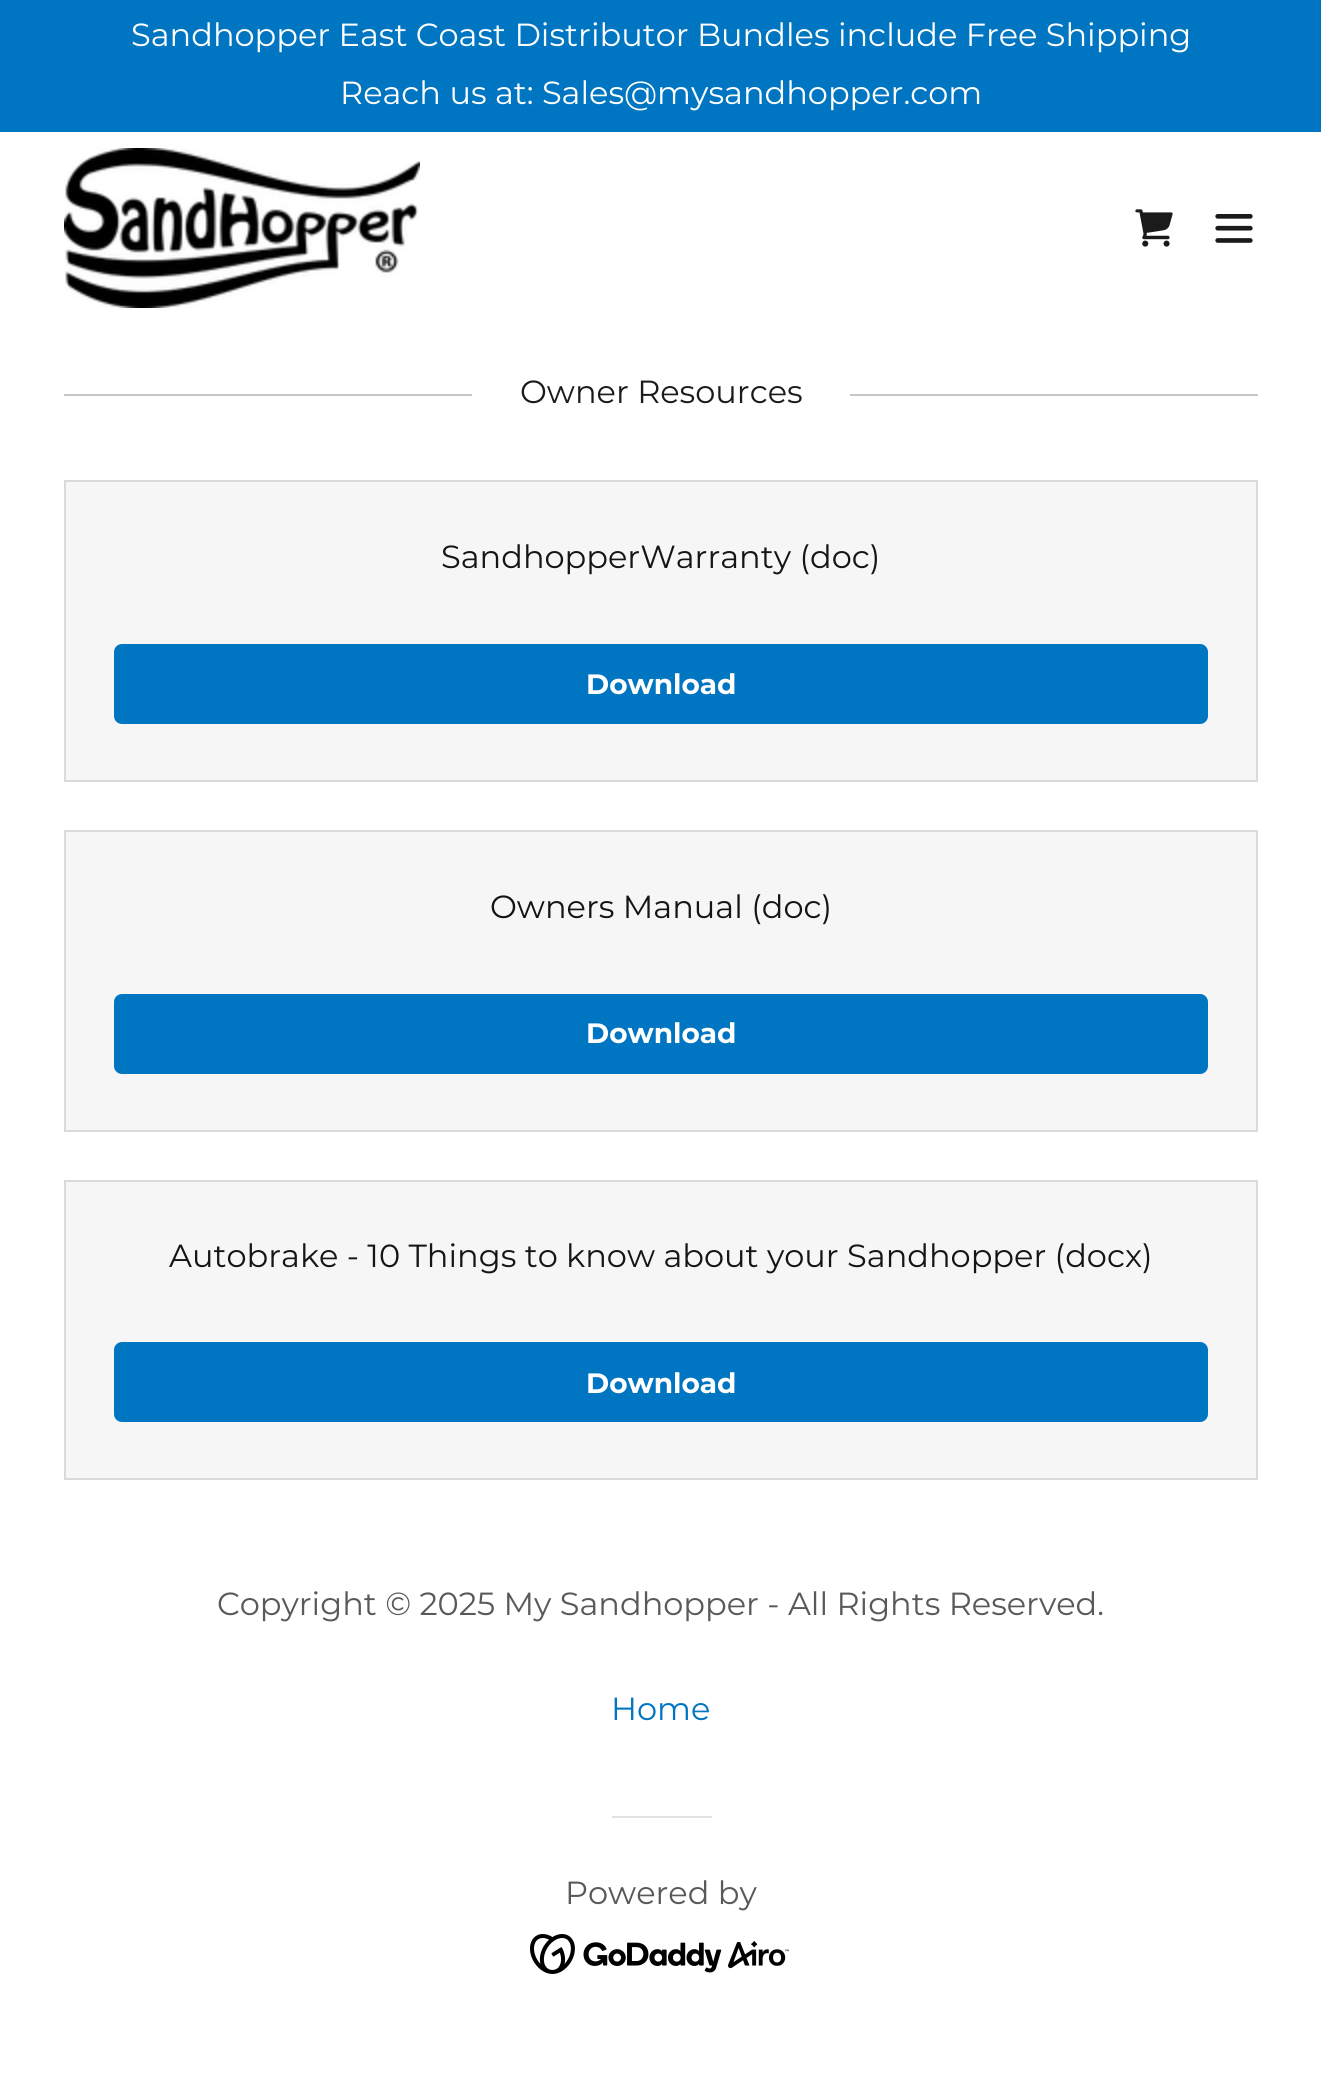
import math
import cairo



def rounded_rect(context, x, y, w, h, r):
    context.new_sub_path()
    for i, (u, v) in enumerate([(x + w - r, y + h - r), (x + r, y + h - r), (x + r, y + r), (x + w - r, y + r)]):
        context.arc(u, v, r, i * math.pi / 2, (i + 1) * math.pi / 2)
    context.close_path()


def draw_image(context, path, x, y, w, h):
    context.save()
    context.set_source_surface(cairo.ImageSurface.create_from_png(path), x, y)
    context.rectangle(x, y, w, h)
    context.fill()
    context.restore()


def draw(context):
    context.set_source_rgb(1, 1, 1)
    context.paint()
    context.set_source_rgb(0, 117 / 255, 193 / 255)
    context.rectangle(0, 0, 1321, 132)
    context.fill()
    draw_image(context, "images/1.png", 64, 148, 356, 160)
    draw_image(context, "images/2.png", 1135, 209, 38, 38)
    draw_image(context, "images/3.png", 1215, 214, 38, 29)
    context.set_source_rgb(198 / 255, 198 / 255, 198 / 255)
    context.rectangle(64, 394, 408, 2)
    context.fill()
    context.rectangle(850, 394, 408, 2)
    context.fill()
    context.set_source_rgb(246 / 255, 246 / 255, 246 / 255)
    context.rectangle(65, 481, 1192, 300)
    context.fill_preserve()
    context.set_source_rgb(218 / 255, 218 / 255, 218 / 255)
    context.stroke()
    context.set_source_rgb(0, 117 / 255, 193 / 255)
    rounded_rect(context, 114, 644, 1094, 80, 8)
    context.fill()
    context.set_source_rgb(246 / 255, 246 / 255, 246 / 255)
    context.rectangle(65, 831, 1192, 300)
    context.fill_preserve()
    context.set_source_rgb(218 / 255, 218 / 255, 218 / 255)
    context.stroke()
    context.set_source_rgb(0, 117 / 255, 193 / 255)
    rounded_rect(context, 114, 994, 1094, 80, 8)
    context.fill()
    context.set_source_rgb(246 / 255, 246 / 255, 246 / 255)
    context.rectangle(65, 1181, 1192, 298)
    context.fill_preserve()
    context.set_source_rgb(218 / 255, 218 / 255, 218 / 255)
    context.stroke()
    context.set_source_rgb(0, 117 / 255, 193 / 255)
    rounded_rect(context, 114, 1342, 1094, 80, 8)
    context.fill()
    context.set_source_rgb(226 / 255, 226 / 255, 226 / 255)
    context.rectangle(612, 1816, 100, 2)
    context.fill()
    draw_image(context, "images/4.png", 530, 1934, 259, 40)
    context.select_font_face("Montserrat")
    context.set_font_size(32)
    context.set_source_rgb(1, 1, 1)
    context.move_to(131, 46)
    context.show_text("Sandhopper East Coast Distributor Bundles include Free Shipping")
    context.move_to(340, 104)
    context.show_text("Reach us at: Sales@mysandhopper.com")
    context.set_source_rgb(27 / 255, 27 / 255, 27 / 255)
    context.move_to(520, 403)
    context.show_text("Owner Resources")
    context.set_source_rgb(21 / 255, 21 / 255, 21 / 255)
    context.move_to(441, 568)
    context.show_text("SandhopperWarranty (doc)")
    context.select_font_face("Montserrat", cairo.FontSlant.NORMAL, cairo.FontWeight.BOLD)
    context.set_font_size(28)
    context.set_source_rgb(1, 1, 1)
    context.move_to(586, 694)
    context.show_text("Download")
    context.select_font_face("Montserrat")
    context.set_font_size(32)
    context.set_source_rgb(21 / 255, 21 / 255, 21 / 255)
    context.move_to(490, 918)
    context.show_text("Owners Manual (doc)")
    context.select_font_face("Montserrat", cairo.FontSlant.NORMAL, cairo.FontWeight.BOLD)
    context.set_font_size(28)
    context.set_source_rgb(1, 1, 1)
    context.move_to(586, 1043)
    context.show_text("Download")
    context.select_font_face("Montserrat")
    context.set_font_size(32)
    context.set_source_rgb(21 / 255, 21 / 255, 21 / 255)
    context.move_to(169, 1267)
    context.show_text("Autobrake - 10 Things to know about your Sandhopper (docx)")
    context.select_font_face("Montserrat", cairo.FontSlant.NORMAL, cairo.FontWeight.BOLD)
    context.set_font_size(28)
    context.set_source_rgb(1, 1, 1)
    context.move_to(586, 1393)
    context.show_text("Download")
    context.select_font_face("Montserrat")
    context.set_font_size(32)
    context.set_source_rgb(89 / 255, 89 / 255, 89 / 255)
    context.move_to(217, 1615)
    context.show_text("Copyright © 2025 My Sandhopper - All Rights Reserved.")
    context.set_source_rgb(0, 117 / 255, 193 / 255)
    context.move_to(611, 1720)
    context.show_text("Home")
    context.set_source_rgb(89 / 255, 89 / 255, 89 / 255)
    context.move_to(565, 1904)
    context.show_text("Powered by")


surface = cairo.ImageSurface(cairo.Format.RGB24, 1321, 2081)
context = cairo.Context(surface)
options = cairo.FontOptions()
options.set_hint_metrics(cairo.HintMetrics.OFF)
options.set_hint_style(cairo.HintStyle.NONE)
context.set_font_options(options)
context.set_miter_limit(4)
draw(context)
surface.write_to_png("out.png")
